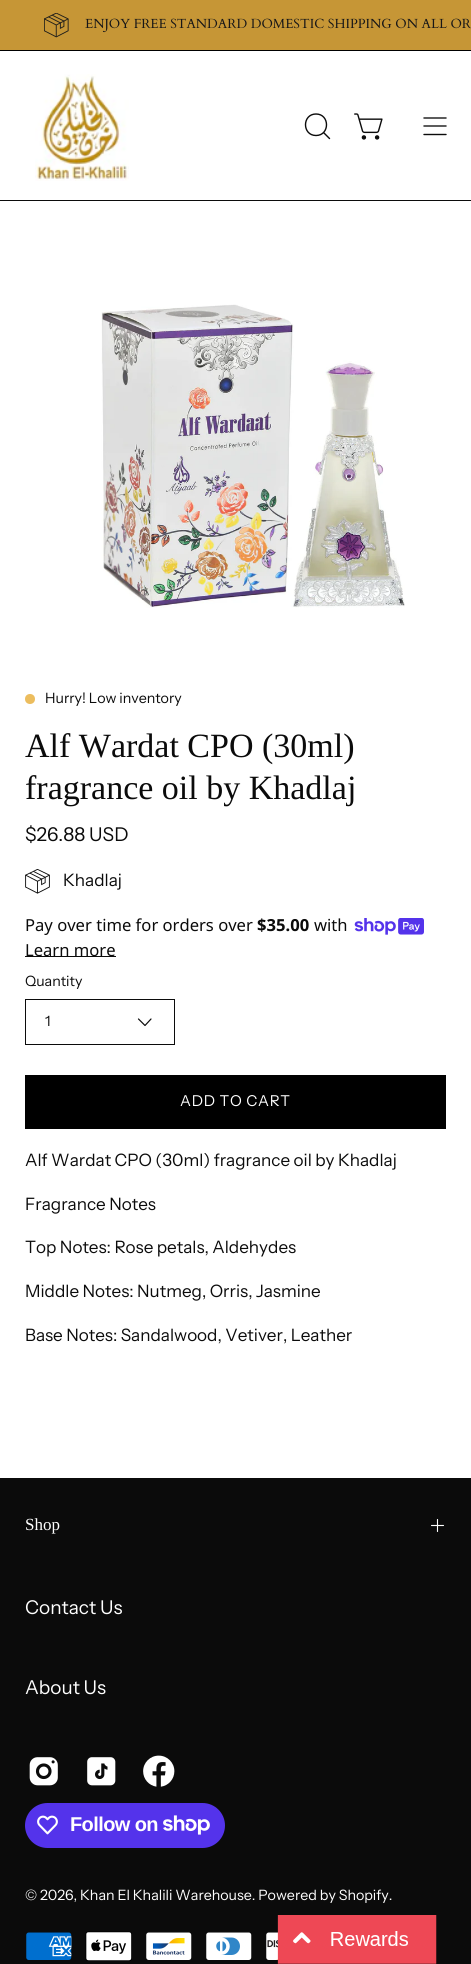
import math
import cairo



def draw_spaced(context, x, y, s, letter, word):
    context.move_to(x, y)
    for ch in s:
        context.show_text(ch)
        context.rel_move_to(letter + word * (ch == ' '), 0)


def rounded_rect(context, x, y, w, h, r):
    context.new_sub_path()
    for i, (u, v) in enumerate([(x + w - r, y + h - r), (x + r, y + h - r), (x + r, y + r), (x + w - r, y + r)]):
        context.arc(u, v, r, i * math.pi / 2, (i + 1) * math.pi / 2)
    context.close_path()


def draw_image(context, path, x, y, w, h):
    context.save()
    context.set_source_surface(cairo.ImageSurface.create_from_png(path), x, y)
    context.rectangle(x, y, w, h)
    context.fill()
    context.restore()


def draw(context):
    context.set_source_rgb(1, 1, 1)
    context.paint()
    context.set_source_rgb(198 / 255, 150 / 255, 54 / 255)
    context.rectangle(0, 0, 471, 50)
    context.fill()
    context.set_source_rgb(0, 0, 0)
    context.rectangle(0, 50, 471, 1)
    context.fill()
    draw_image(context, "images/1.png", 44, 13, 25, 25)
    draw_image(context, "images/2.png", 35, 74, 94, 107)
    context.new_path()
    context.move_to(316, 135.5)
    context.curve_to(330, 135.5, 330, 114, 316, 114)
    context.curve_to(302, 114, 302, 135.5, 316, 135.5)
    context.close_path()
    context.move_to(323.5, 132.5)
    context.line_to(329.5, 138.5)
    context.set_source_rgb(11 / 255, 11 / 255, 11 / 255)
    context.set_line_width(1.4)
    context.set_line_cap(cairo.LineCap.ROUND)
    context.set_line_join(cairo.LineJoin.ROUND)
    context.stroke()
    draw_image(context, "images/3.png", 354, 113, 29, 27)
    context.new_path()
    context.move_to(424, 126)
    context.line_to(446, 126)
    context.move_to(424, 118)
    context.line_to(446, 118)
    context.move_to(424, 134.5)
    context.line_to(446, 134.5)
    context.stroke()
    context.rectangle(0, 200, 471, 1)
    context.fill()
    draw_image(context, "images/4.png", 101, 304, 304, 304)
    context.set_source_rgb(236 / 255, 189 / 255, 94 / 255)
    context.arc(30, 699, 5, 0, 2 * math.pi)
    context.fill()
    draw_image(context, "images/5.png", 25, 869, 25, 25)
    draw_image(context, "images/6.png", 354, 918, 70, 17)
    context.set_source_rgb(11 / 255, 11 / 255, 11 / 255)
    context.rectangle(25, 956, 91, 1)
    context.fill()
    context.rectangle(25.5, 999.5, 149, 45)
    context.set_line_width(1)
    context.set_line_cap(cairo.LineCap.BUTT)
    context.set_line_join(cairo.LineJoin.MITER)
    context.stroke()
    context.new_path()
    context.move_to(151, 1019)
    context.line_to(145, 1025.5)
    context.line_to(138.5, 1019)
    context.set_line_width(1.2)
    context.set_line_cap(cairo.LineCap.ROUND)
    context.set_line_join(cairo.LineJoin.ROUND)
    context.stroke()
    context.set_source_rgb(0, 0, 0)
    context.rectangle(25, 1075, 421, 54)
    context.fill()
    context.set_source_rgb(11 / 255, 11 / 255, 11 / 255)
    context.rectangle(0, 1478, 471, 486)
    context.fill()
    context.new_path()
    context.move_to(431.5, 1525.5)
    context.line_to(443.5, 1525.5)
    context.move_to(437.5, 1519.5)
    context.line_to(437.5, 1531.5)
    context.set_source_rgb(1, 1, 1)
    context.set_line_width(1.1)
    context.stroke()
    draw_image(context, "images/7.png", 29, 1757, 29, 29)
    draw_image(context, "images/8.png", 87, 1757, 29, 29)
    draw_image(context, "images/9.png", 143, 1755, 32, 32)
    context.set_source_rgb(84 / 255, 51 / 255, 235 / 255)
    rounded_rect(context, 25, 1803, 200, 45, 22.5)
    context.fill()
    draw_image(context, "images/10.png", 37, 1815, 21, 20)
    draw_image(context, "images/11.png", 163, 1815, 47, 20)
    draw_image(context, "images/12.png", 26, 1932, 46, 28)
    draw_image(context, "images/13.png", 85, 1931, 47, 30)
    draw_image(context, "images/14.png", 146, 1932, 46, 28)
    draw_image(context, "images/15.png", 206, 1932, 46, 28)
    draw_image(context, "images/16.png", 266, 1932, 12, 28)
    draw_image(context, "images/17.png", 277, 1915, 160, 49)
    context.select_font_face("Cardo")
    context.set_font_size(13.2)
    context.set_source_rgb(24 / 255, 23 / 255, 23 / 255)
    context.move_to(85, 28)
    context.show_text("ENJOY FREE STANDARD DOMESTIC SHIPPING ON ALL OR")
    context.select_font_face("Instrument Sans")
    context.set_font_size(14.25)
    context.set_source_rgb(11 / 255, 11 / 255, 11 / 255)
    context.move_to(45, 703)
    context.show_text("Hurry! Low inventory")
    context.select_font_face("Liberation Serif")
    context.set_font_size(34)
    context.move_to(25, 757)
    context.show_text("Alf Wardat CPO (30ml)")
    context.move_to(25, 799)
    context.show_text("fragrance oil by Khadlaj")
    context.select_font_face("Instrument Sans")
    context.set_font_size(19)
    context.move_to(25, 841)
    context.show_text("$26.88 USD")
    context.set_font_size(17.1)
    context.move_to(63, 886)
    context.show_text("Khadlaj")
    context.select_font_face("Noto Sans")
    context.set_font_size(16.6)
    context.move_to(25, 931)
    context.show_text("Pay over time for orders over")
    context.select_font_face("Noto Sans", cairo.FontSlant.NORMAL, cairo.FontWeight.BOLD)
    context.move_to(257, 931)
    context.show_text("$35.00")
    context.select_font_face("Noto Sans")
    context.move_to(314, 931)
    context.show_text("with")
    context.move_to(25, 956)
    context.show_text("Learn more")
    context.select_font_face("Instrument Sans")
    context.set_font_size(14.25)
    context.move_to(25, 986)
    context.show_text("Quantity")
    context.move_to(45, 1026)
    context.show_text("1")
    context.set_font_size(15)
    context.set_source_rgb(1, 1, 1)
    draw_spaced(context, 180, 1106, "ADD TO CART", 0.75, 0)
    context.set_font_size(17.1)
    context.set_source_rgb(11 / 255, 11 / 255, 11 / 255)
    context.move_to(25, 1166)
    context.show_text("Alf Wardat CPO (30ml) fragrance oil by Khadlaj")
    context.move_to(25, 1210)
    context.show_text("Fragrance Notes")
    context.move_to(25, 1253)
    context.show_text("Top Notes: Rose petals, Aldehydes")
    context.move_to(25, 1297)
    context.show_text("Middle Notes: Nutmeg, Orris, Jasmine")
    context.move_to(25, 1341)
    context.show_text("Base Notes: Sandalwood, Vetiver, Leather")
    context.select_font_face("Liberation Serif")
    context.set_font_size(17)
    context.set_source_rgb(1, 1, 1)
    context.move_to(25, 1530)
    context.show_text("Shop")
    context.select_font_face("Instrument Sans")
    context.set_font_size(19)
    context.move_to(25, 1614)
    context.show_text("Contact Us")
    context.move_to(25, 1694)
    context.show_text("About Us")
    context.select_font_face("Liberation Sans", cairo.FontSlant.NORMAL, cairo.FontWeight.BOLD)
    context.set_font_size(20)
    draw_spaced(context, 70, 1831, "Follow on", -0.6, 0)
    context.select_font_face("Instrument Sans")
    context.set_font_size(14.25)
    context.move_to(25, 1900)
    context.show_text("© 2026, Khan El Khalili Warehouse. Powered by Shopify.")


surface = cairo.ImageSurface(cairo.Format.RGB24, 471, 1964)
context = cairo.Context(surface)
options = cairo.FontOptions()
options.set_hint_metrics(cairo.HintMetrics.OFF)
options.set_hint_style(cairo.HintStyle.NONE)
context.set_font_options(options)
context.set_miter_limit(4)
draw(context)
surface.write_to_png("out.png")
